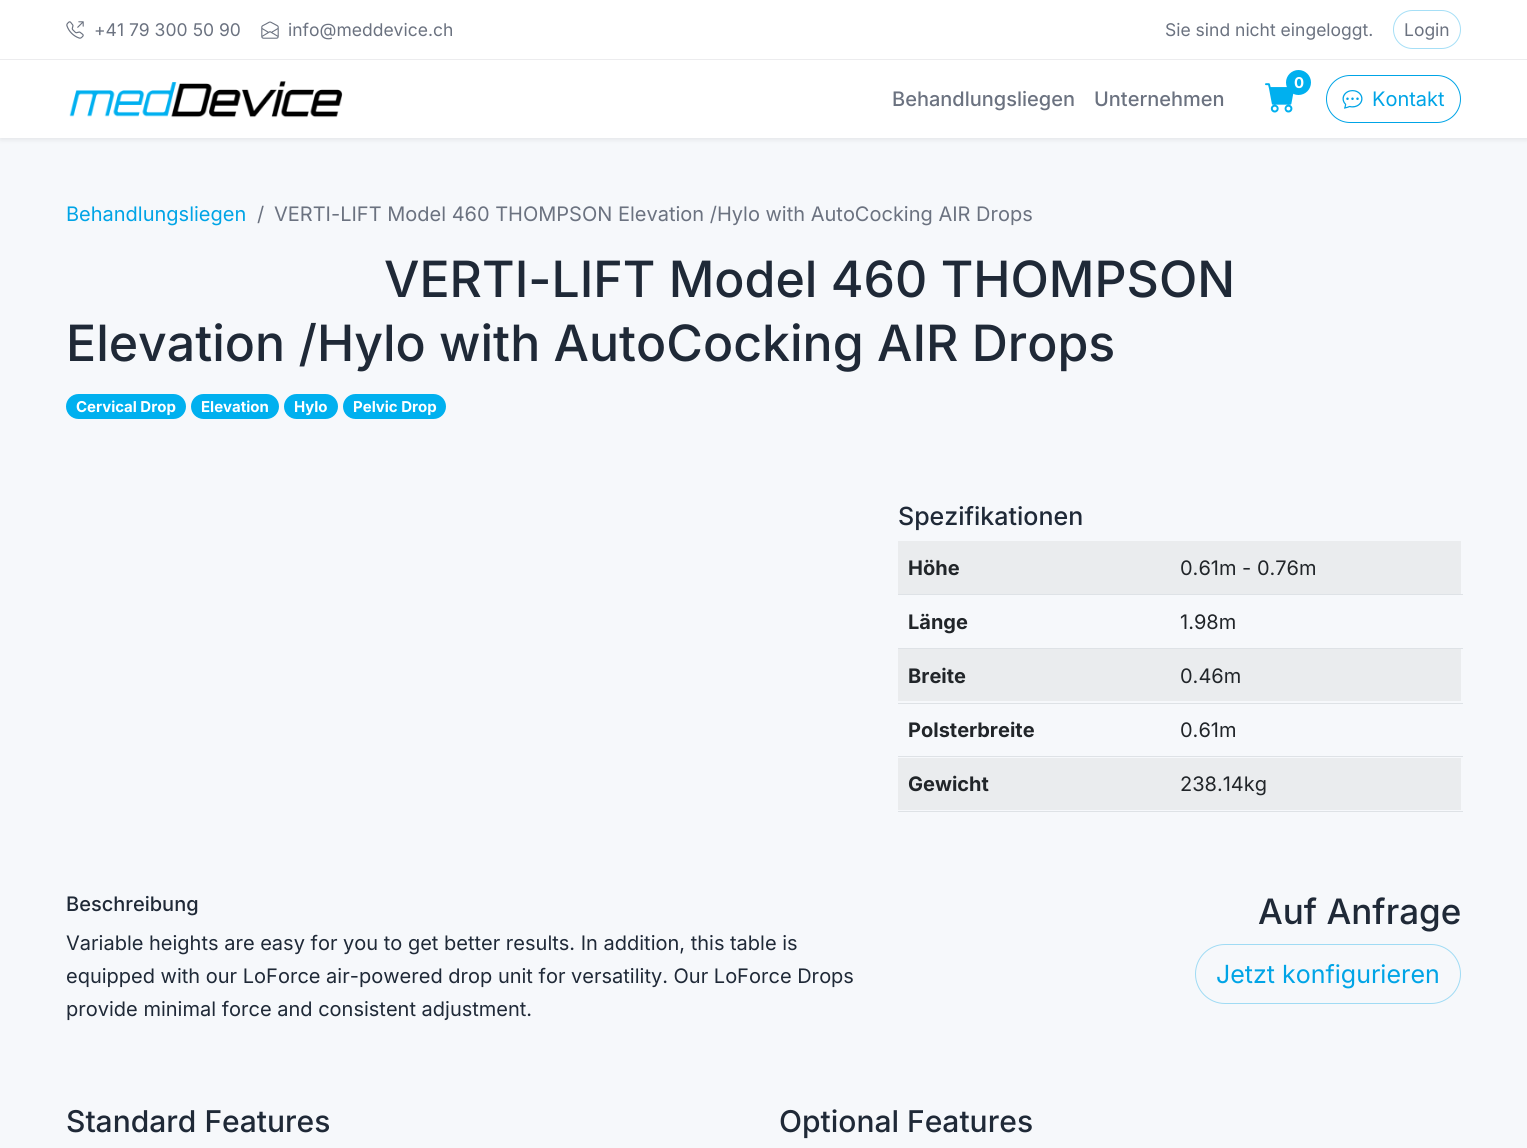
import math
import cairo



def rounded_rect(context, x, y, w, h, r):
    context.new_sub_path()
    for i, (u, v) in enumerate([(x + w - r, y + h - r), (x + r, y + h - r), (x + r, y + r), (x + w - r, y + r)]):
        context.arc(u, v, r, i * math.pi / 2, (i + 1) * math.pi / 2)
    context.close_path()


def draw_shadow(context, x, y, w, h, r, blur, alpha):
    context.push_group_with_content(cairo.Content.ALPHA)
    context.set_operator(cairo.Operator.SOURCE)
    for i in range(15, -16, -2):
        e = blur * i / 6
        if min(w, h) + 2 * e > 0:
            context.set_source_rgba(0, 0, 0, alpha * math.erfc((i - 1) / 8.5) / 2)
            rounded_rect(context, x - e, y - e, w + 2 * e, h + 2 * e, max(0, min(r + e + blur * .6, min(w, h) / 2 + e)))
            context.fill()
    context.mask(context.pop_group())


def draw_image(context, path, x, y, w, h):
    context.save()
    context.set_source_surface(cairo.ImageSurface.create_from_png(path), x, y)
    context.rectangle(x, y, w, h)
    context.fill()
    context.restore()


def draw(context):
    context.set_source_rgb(246 / 255, 248 / 255, 251 / 255)
    context.paint()
    context.set_source_rgb(0, 0, 0)
    draw_shadow(context, 0, 3, 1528, 137, 0, 2.5, 0.07)
    context.set_source_rgb(1, 1, 1)
    context.rectangle(0, 0, 1527, 138)
    context.fill()
    context.set_source_rgb(236 / 255, 236 / 255, 238 / 255)
    context.rectangle(0, 59, 1527, 1)
    context.fill()
    draw_image(context, "images/1.png", 66, 21, 18, 18)
    draw_image(context, "images/2.png", 261, 21, 18, 18)
    rounded_rect(context, 1393.5, 10.5, 67, 38, 19)
    context.set_source_rgb(166 / 255, 223 / 255, 246 / 255)
    context.set_line_width(1)
    context.stroke()
    draw_image(context, "images/3.png", 69, 81, 274, 37)
    draw_image(context, "images/4.png", 1265, 83, 29, 30)
    context.set_source_rgb(0, 176 / 255, 239 / 255)
    context.arc(1298.5, 82.5, 12.5, 0, 2 * math.pi)
    context.fill()
    rounded_rect(context, 1326.5, 75.5, 134, 47, 23.5)
    context.set_source_rgb(0, 164 / 255, 230 / 255)
    context.stroke()
    draw_image(context, "images/5.png", 1342, 90, 21, 19)
    context.set_source_rgb(0, 176 / 255, 239 / 255)
    rounded_rect(context, 66, 394, 120, 25, 12.5)
    context.fill()
    rounded_rect(context, 191, 394, 88, 25, 12.5)
    context.fill()
    rounded_rect(context, 284, 394, 54, 25, 12.5)
    context.fill()
    rounded_rect(context, 343, 394, 103, 25, 12.5)
    context.fill()
    context.set_source_rgb(234 / 255, 236 / 255, 238 / 255)
    context.rectangle(898, 541, 563, 53)
    context.fill()
    context.set_source_rgb(222 / 255, 226 / 255, 230 / 255)
    context.rectangle(898, 594, 565, 1)
    context.fill()
    context.rectangle(898, 648, 565, 1)
    context.fill()
    context.set_source_rgb(234 / 255, 236 / 255, 238 / 255)
    context.rectangle(898, 649, 563, 52)
    context.fill()
    context.set_source_rgb(222 / 255, 226 / 255, 230 / 255)
    context.rectangle(898, 703, 565, 1)
    context.fill()
    context.rectangle(898, 756, 565, 1)
    context.fill()
    context.set_source_rgb(234 / 255, 236 / 255, 238 / 255)
    context.rectangle(898, 758, 563, 52)
    context.fill()
    context.set_source_rgb(222 / 255, 226 / 255, 230 / 255)
    context.rectangle(898, 811, 565, 1)
    context.fill()
    rounded_rect(context, 1195.5, 944.5, 265, 59, 29.5)
    context.set_source_rgb(160 / 255, 219 / 255, 244 / 255)
    context.stroke()
    context.select_font_face("Inter")
    context.set_font_size(17.5)
    context.set_source_rgb(107 / 255, 114 / 255, 128 / 255)
    context.move_to(94, 36)
    context.show_text("+41 79 300 50 90")
    context.move_to(288, 36)
    context.show_text("info@meddevice.ch")
    context.move_to(1165, 36)
    context.show_text("Sie sind nicht eingeloggt.")
    context.move_to(1404, 36)
    context.show_text("Login")
    context.select_font_face("Inter Medium")
    context.set_font_size(20)
    context.move_to(892, 106)
    context.show_text("Behandlungsliegen")
    context.move_to(1094, 106)
    context.show_text("Unternehmen")
    context.select_font_face("Inter", cairo.FontSlant.NORMAL, cairo.FontWeight.BOLD)
    context.set_font_size(15)
    context.set_source_rgb(1, 1, 1)
    context.move_to(1294, 88)
    context.show_text("0")
    context.select_font_face("Inter")
    context.set_font_size(20)
    context.set_source_rgb(0, 164 / 255, 230 / 255)
    context.move_to(1372, 106)
    context.show_text("Kontakt")
    context.move_to(66, 221)
    context.show_text("Behandlungsliegen")
    context.set_source_rgb(107 / 255, 114 / 255, 128 / 255)
    context.move_to(257, 221)
    context.show_text("/")
    context.move_to(274, 221)
    context.show_text("VERTI-LIFT Model 460 THOMPSON Elevation /Hylo with AutoCocking AIR Drops")
    context.select_font_face("Inter Medium")
    context.set_font_size(50)
    context.set_source_rgb(31 / 255, 41 / 255, 55 / 255)
    context.move_to(384, 297)
    context.show_text("VERTI-LIFT Model 460 THOMPSON")
    context.move_to(66, 361)
    context.show_text("Elevation /Hylo with AutoCocking AIR Drops")
    context.select_font_face("Inter", cairo.FontSlant.NORMAL, cairo.FontWeight.BOLD)
    context.set_font_size(15)
    context.set_source_rgb(1, 1, 1)
    context.move_to(76, 412)
    context.show_text("Cervical Drop")
    context.move_to(201, 412)
    context.show_text("Elevation")
    context.move_to(294, 412)
    context.show_text("Hylo")
    context.move_to(353, 412)
    context.show_text("Pelvic Drop")
    context.select_font_face("Inter Medium")
    context.set_font_size(25)
    context.set_source_rgb(31 / 255, 41 / 255, 55 / 255)
    context.move_to(898, 525)
    context.show_text("Spezifikationen")
    context.select_font_face("Inter", cairo.FontSlant.NORMAL, cairo.FontWeight.BOLD)
    context.set_font_size(20)
    context.set_source_rgb(33 / 255, 37 / 255, 41 / 255)
    context.move_to(908, 575)
    context.show_text("Höhe")
    context.select_font_face("Inter")
    context.move_to(1180, 575)
    context.show_text("0.61m - 0.76m")
    context.select_font_face("Inter", cairo.FontSlant.NORMAL, cairo.FontWeight.BOLD)
    context.move_to(908, 629)
    context.show_text("Länge")
    context.select_font_face("Inter")
    context.move_to(1180, 629)
    context.show_text("1.98m")
    context.select_font_face("Inter", cairo.FontSlant.NORMAL, cairo.FontWeight.BOLD)
    context.move_to(908, 683)
    context.show_text("Breite")
    context.select_font_face("Inter")
    context.move_to(1180, 683)
    context.show_text("0.46m")
    context.select_font_face("Inter", cairo.FontSlant.NORMAL, cairo.FontWeight.BOLD)
    context.move_to(908, 737)
    context.show_text("Polsterbreite")
    context.select_font_face("Inter")
    context.move_to(1180, 737)
    context.show_text("0.61m")
    context.select_font_face("Inter", cairo.FontSlant.NORMAL, cairo.FontWeight.BOLD)
    context.move_to(908, 791)
    context.show_text("Gewicht")
    context.select_font_face("Inter")
    context.move_to(1180, 791)
    context.show_text("238.14kg")
    context.select_font_face("Inter Medium")
    context.set_source_rgb(31 / 255, 41 / 255, 55 / 255)
    context.move_to(66, 911)
    context.show_text("Beschreibung")
    context.select_font_face("Inter")
    context.move_to(66, 950)
    context.show_text("Variable heights are easy for you to get better results. In addition, this table is")
    context.move_to(66, 983)
    context.show_text("equipped with our LoForce air-powered drop unit for versatility. Our LoForce Drops")
    context.move_to(66, 1016)
    context.show_text("provide minimal force and consistent adjustment.")
    context.select_font_face("Inter Medium")
    context.set_font_size(35)
    context.move_to(1258, 924)
    context.show_text("Auf Anfrage")
    context.select_font_face("Inter")
    context.set_font_size(25)
    context.set_source_rgb(0, 164 / 255, 230 / 255)
    context.move_to(1216, 983)
    context.show_text("Jetzt konfigurieren")
    context.select_font_face("Inter Medium")
    context.set_font_size(30)
    context.set_source_rgb(31 / 255, 41 / 255, 55 / 255)
    context.move_to(66, 1132)
    context.show_text("Standard Features")
    context.move_to(779, 1132)
    context.show_text("Optional Features")


surface = cairo.ImageSurface(cairo.Format.RGB24, 1527, 1148)
context = cairo.Context(surface)
options = cairo.FontOptions()
options.set_hint_metrics(cairo.HintMetrics.OFF)
options.set_hint_style(cairo.HintStyle.NONE)
context.set_font_options(options)
context.set_miter_limit(4)
draw(context)
surface.write_to_png("out.png")
